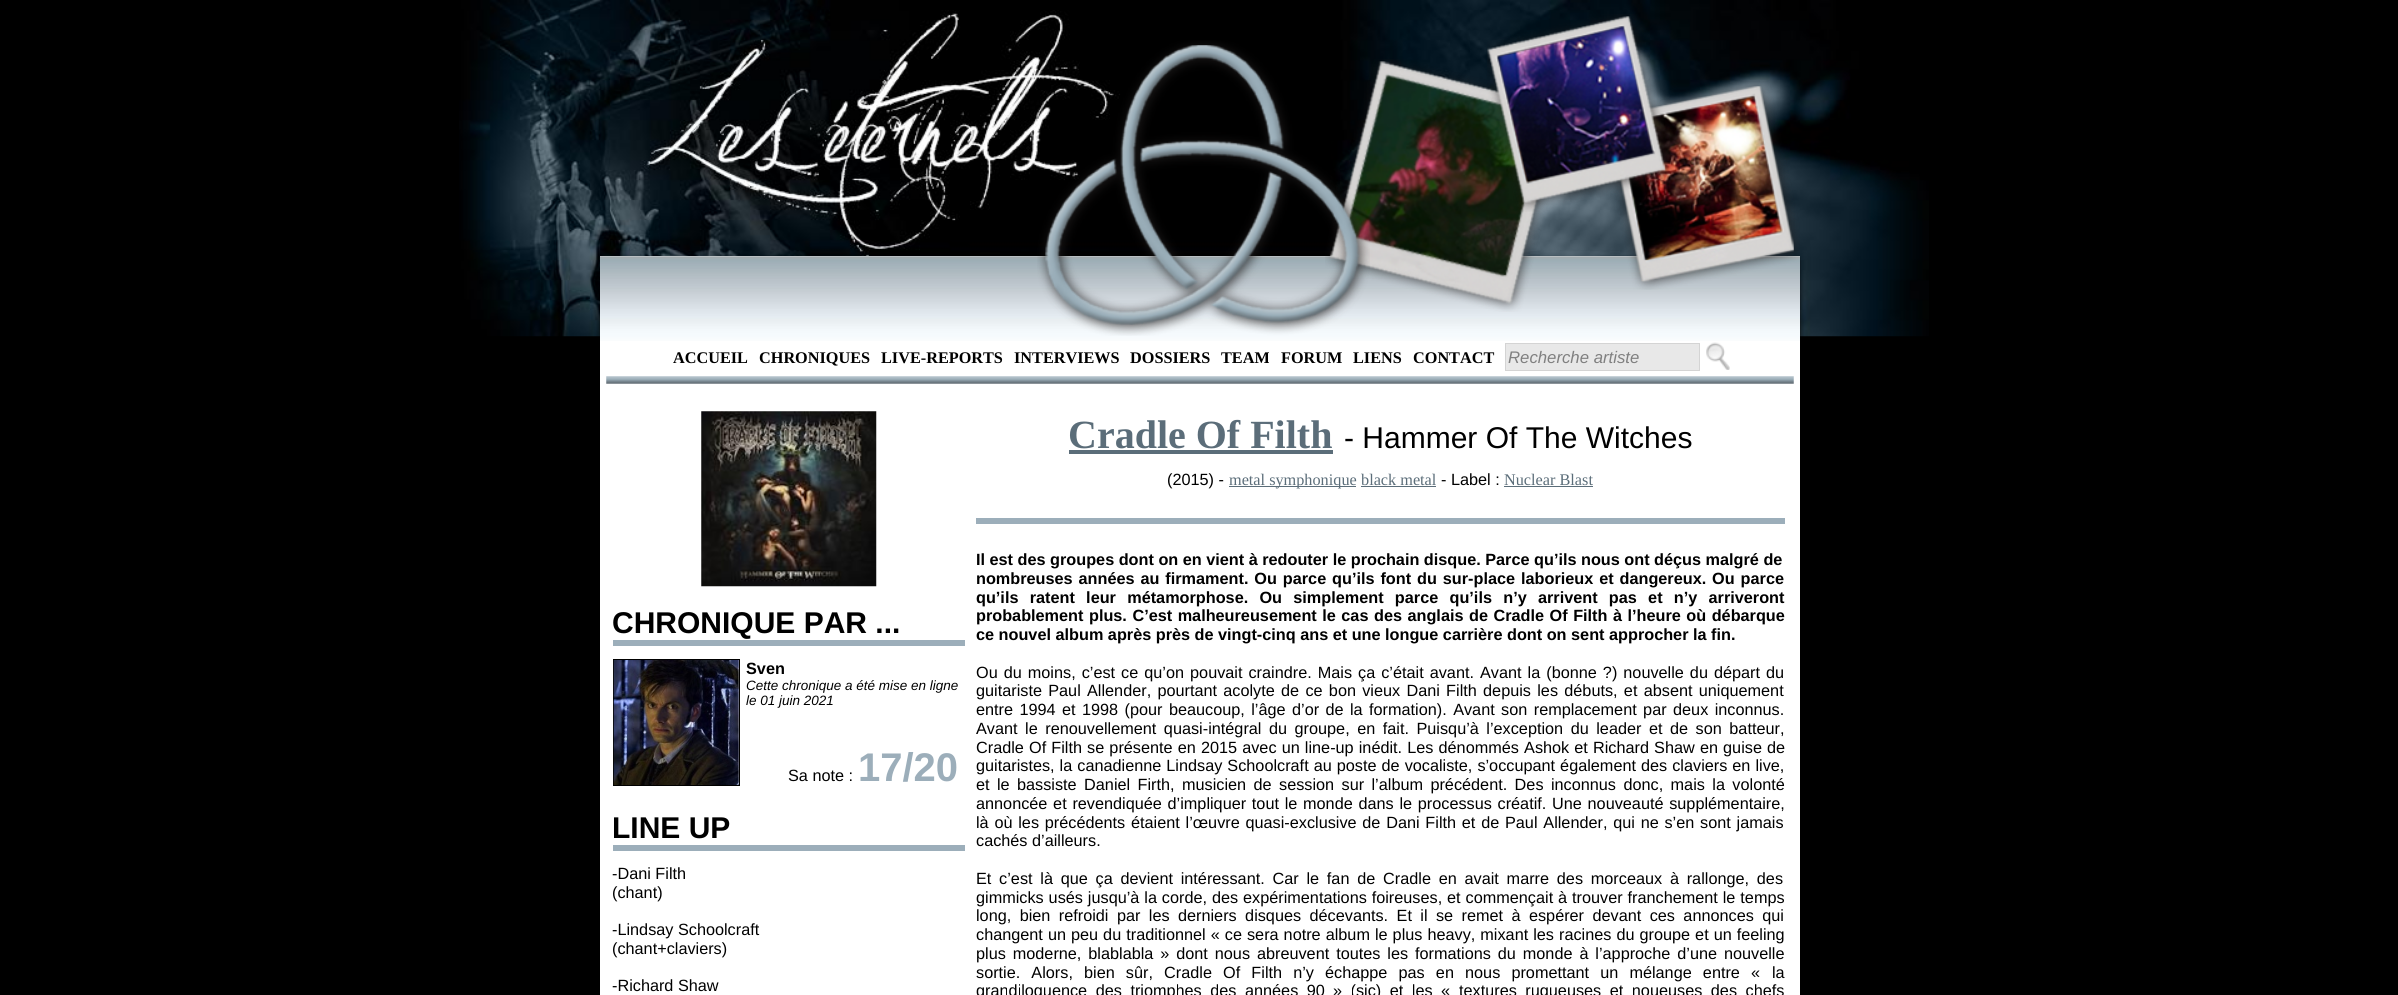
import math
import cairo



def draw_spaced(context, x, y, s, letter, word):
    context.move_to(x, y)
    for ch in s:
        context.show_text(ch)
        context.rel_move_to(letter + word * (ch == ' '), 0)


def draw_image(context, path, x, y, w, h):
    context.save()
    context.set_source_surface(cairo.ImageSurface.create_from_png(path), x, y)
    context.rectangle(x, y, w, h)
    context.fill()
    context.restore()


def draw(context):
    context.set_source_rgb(0, 0, 0)
    context.paint()
    draw_image(context, "images/1.png", 459, 0, 1470, 337)
    context.set_source_rgb(1, 1, 1)
    context.rectangle(600, 256, 1200, 739)
    context.fill()
    draw_image(context, "images/6.png", 600, 256, 1200, 85)
    draw_image(context, "images/3.png", 1325, 59, 224, 253)
    draw_image(context, "images/2.png", 1037, 40, 333, 296)
    draw_image(context, "images/5.png", 1612, 81, 188, 209)
    draw_image(context, "images/4.png", 1487, 14, 187, 198)
    context.set_source_rgb(232 / 255, 232 / 255, 232 / 255)
    context.rectangle(1505.5, 343.5, 194, 27)
    context.fill_preserve()
    context.set_source_rgb(212 / 255, 212 / 255, 212 / 255)
    context.set_line_width(1)
    context.stroke()
    draw_image(context, "images/7.png", 1706, 342, 24, 28)
    draw_image(context, "images/8.png", 606, 376, 1188, 8)
    draw_image(context, "images/9.png", 701, 411, 176, 176)
    context.set_source_rgb(156 / 255, 174 / 255, 186 / 255)
    context.rectangle(613, 640, 352, 6)
    context.fill()
    context.rectangle(613.5, 659.5, 126, 126)
    context.set_source_rgb(0, 0, 0)
    context.stroke()
    draw_image(context, "images/10.png", 613, 660, 126, 125)
    context.set_source_rgb(156 / 255, 174 / 255, 186 / 255)
    context.rectangle(613, 845, 352, 6)
    context.fill()
    context.set_source_rgb(91 / 255, 109 / 255, 121 / 255)
    context.rectangle(1069, 450, 264, 4)
    context.fill()
    context.rectangle(1229, 486, 127, 1)
    context.fill()
    context.rectangle(1361, 486, 75, 1)
    context.fill()
    context.rectangle(1504, 486, 89, 1)
    context.fill()
    context.set_source_rgb(156 / 255, 174 / 255, 186 / 255)
    context.rectangle(976, 518, 809, 6)
    context.fill()
    context.select_font_face("Liberation Serif", cairo.FontSlant.NORMAL, cairo.FontWeight.BOLD)
    context.set_font_size(16.25)
    context.set_source_rgb(0, 0, 0)
    context.move_to(673, 363)
    context.show_text("ACCUEIL")
    context.move_to(759, 363)
    context.show_text("CHRONIQUES")
    context.move_to(881, 363)
    context.show_text("LIVE-REPORTS")
    context.move_to(1014, 363)
    context.show_text("INTERVIEWS")
    context.move_to(1130, 363)
    context.show_text("DOSSIERS")
    context.move_to(1221, 363)
    context.show_text("TEAM")
    context.move_to(1281, 363)
    context.show_text("FORUM")
    context.move_to(1353, 363)
    context.show_text("LIENS")
    context.move_to(1413, 363)
    context.show_text("CONTACT")
    context.select_font_face("Liberation Sans", cairo.FontSlant.ITALIC)
    context.set_font_size(16.75)
    context.set_source_rgb(128 / 255, 128 / 255, 128 / 255)
    context.move_to(1508, 363)
    context.show_text("Recherche artiste")
    context.select_font_face("Liberation Sans", cairo.FontSlant.NORMAL, cairo.FontWeight.BOLD)
    context.set_font_size(30)
    context.set_source_rgb(0, 0, 0)
    context.move_to(612, 633)
    context.show_text("CHRONIQUE PAR ...")
    context.set_font_size(16.25)
    context.move_to(746, 674)
    context.show_text("Sven")
    context.select_font_face("Liberation Sans", cairo.FontSlant.ITALIC)
    context.set_font_size(13.5)
    context.move_to(746, 690)
    context.show_text("Cette chronique a été mise en ligne")
    context.move_to(746, 705)
    context.show_text("le 01 juin 2021")
    context.select_font_face("Liberation Sans")
    context.set_font_size(16.25)
    context.move_to(788, 781)
    context.show_text("Sa note :")
    context.select_font_face("Liberation Sans", cairo.FontSlant.NORMAL, cairo.FontWeight.BOLD)
    context.set_font_size(40)
    context.set_source_rgb(156 / 255, 174 / 255, 186 / 255)
    context.move_to(858, 781)
    context.show_text("17/20")
    context.set_font_size(30)
    context.set_source_rgb(0, 0, 0)
    context.move_to(612, 838)
    context.show_text("LINE UP")
    context.select_font_face("Liberation Sans")
    context.set_font_size(16.25)
    context.move_to(612, 879)
    context.show_text("-Dani Filth")
    context.move_to(612, 898)
    context.show_text("(chant)")
    context.move_to(612, 935)
    context.show_text("-Lindsay Schoolcraft")
    context.move_to(612, 954)
    context.show_text("(chant+claviers)")
    context.move_to(612, 991)
    context.show_text("-Richard Shaw")
    context.select_font_face("Liberation Serif", cairo.FontSlant.NORMAL, cairo.FontWeight.BOLD)
    context.set_font_size(40)
    context.set_source_rgb(91 / 255, 109 / 255, 121 / 255)
    context.move_to(1068, 448)
    context.show_text("Cradle Of Filth")
    context.select_font_face("Liberation Sans")
    context.set_font_size(30)
    context.set_source_rgb(0, 0, 0)
    context.move_to(1344, 448)
    context.show_text("- Hammer Of The Witches")
    context.set_font_size(16.25)
    context.move_to(1167, 485)
    context.show_text("(2015) -")
    context.select_font_face("Liberation Serif")
    context.set_source_rgb(91 / 255, 109 / 255, 121 / 255)
    context.move_to(1229, 485)
    context.show_text("metal symphonique")
    context.move_to(1361, 485)
    context.show_text("black metal")
    context.select_font_face("Liberation Sans")
    context.set_source_rgb(0, 0, 0)
    context.move_to(1441, 485)
    context.show_text("- Label :")
    context.select_font_face("Liberation Serif")
    context.set_source_rgb(91 / 255, 109 / 255, 121 / 255)
    context.move_to(1504, 485)
    context.show_text("Nuclear Blast")
    context.select_font_face("Liberation Sans", cairo.FontSlant.NORMAL, cairo.FontWeight.BOLD)
    context.set_source_rgb(0, 0, 0)
    context.move_to(976, 565)
    context.show_text("Il est des groupes dont on en vient à redouter le prochain disque. Parce qu’ils nous ont déçus malgré de")
    draw_spaced(context, 976, 584, "nombreuses années au firmament. Ou parce qu’ils font du sur-place laborieux et dangereux. Ou parce", 0, 1.4)
    draw_spaced(context, 976, 603, "qu’ils ratent leur métamorphose. Ou simplement parce qu’ils n’y arrivent pas et n’y arriveront", 0, 6.75)
    draw_spaced(context, 976, 621, "probablement plus. C’est malheureusement le cas des anglais de Cradle Of Filth à l’heure où débarque", 0, 1)
    context.move_to(976, 640)
    context.show_text("ce nouvel album après près de vingt-cinq ans et une longue carrière dont on sent approcher la fin.")
    context.select_font_face("Liberation Sans")
    draw_spaced(context, 976, 678, "Ou du moins, c’est ce qu’on pouvait craindre. Mais ça c’était avant. Avant la (bonne ?) nouvelle du départ du", 0, 1.5)
    draw_spaced(context, 976, 696, "guitariste Paul Allender, pourtant acolyte de ce bon vieux Dani Filth depuis les débuts, et absent uniquement", 0, 1.75)
    draw_spaced(context, 976, 715, "entre 1994 et 1998 (pour beaucoup, l’âge d’or de la formation). Avant son remplacement par deux inconnus.", 0, 1.9)
    draw_spaced(context, 976, 734, "Avant le renouvellement quasi-intégral du groupe, en fait. Puisqu’à l’exception du leader et de son batteur,", 0, 3)
    draw_spaced(context, 976, 753, "Cradle Of Filth se présente en 2015 avec un line-up inédit. Les dénommés Ashok et Richard Shaw en guise de", 0, 0.6)
    draw_spaced(context, 976, 771, "guitaristes, la canadienne Lindsay Schoolcraft au poste de vocaliste, s’occupant également des claviers en live,", 0, 0.5)
    draw_spaced(context, 976, 790, "et le bassiste Daniel Firth, musicien de session sur l’album précédent. Des inconnus donc, mais la volonté", 0, 2.9)
    draw_spaced(context, 976, 809, "annoncée et revendiquée d’impliquer tout le monde dans le processus créatif. Une nouveauté supplémentaire,", 0, 1.2)
    draw_spaced(context, 976, 828, "là où les précédents étaient l’œuvre quasi-exclusive de Dani Filth et de Paul Allender, qui ne s’en sont jamais", 0, 1.25)
    context.move_to(976, 846)
    context.show_text("cachés d’ailleurs.")
    draw_spaced(context, 976, 884, "Et c’est là que ça devient intéressant. Car le fan de Cradle en avait marre des morceaux à rallonge, des", 0, 3.25)
    draw_spaced(context, 976, 903, "gimmicks usés jusqu’à la corde, des expérimentations foireuses, et commençait à trouver franchement le temps", 0, 0.4)
    draw_spaced(context, 976, 921, "long, bien refroidi par les derniers disques décevants. Et il se remet à espérer devant ces annonces qui", 0, 3.9)
    draw_spaced(context, 976, 940, "changent un peu du traditionnel « ce sera notre album le plus heavy, mixant les racines du groupe et un feeling", 0, 0.5)
    draw_spaced(context, 976, 959, "plus moderne, blablabla » dont nous abreuvent toutes les formations du monde à l’approche d’une nouvelle", 0, 2.4)
    draw_spaced(context, 976, 978, "sortie. Alors, bien sûr, Cradle Of Filth n’y échappe pas en nous promettant un mélange entre «", 0, 6.6)
    context.move_to(1772, 978)
    context.show_text("la")
    draw_spaced(context, 976, 996, "grandiloquence des triomphes des années 90", 0, 4)
    draw_spaced(context, 1333, 996, "» (sic) et les «", 0, 4)
    draw_spaced(context, 1459, 996, "textures rugueuses et noueuses des chefs", 0, 4)


surface = cairo.ImageSurface(cairo.Format.RGB24, 2398, 995)
context = cairo.Context(surface)
options = cairo.FontOptions()
options.set_hint_metrics(cairo.HintMetrics.OFF)
options.set_hint_style(cairo.HintStyle.NONE)
context.set_font_options(options)
context.set_miter_limit(4)
draw(context)
surface.write_to_png("out.png")
